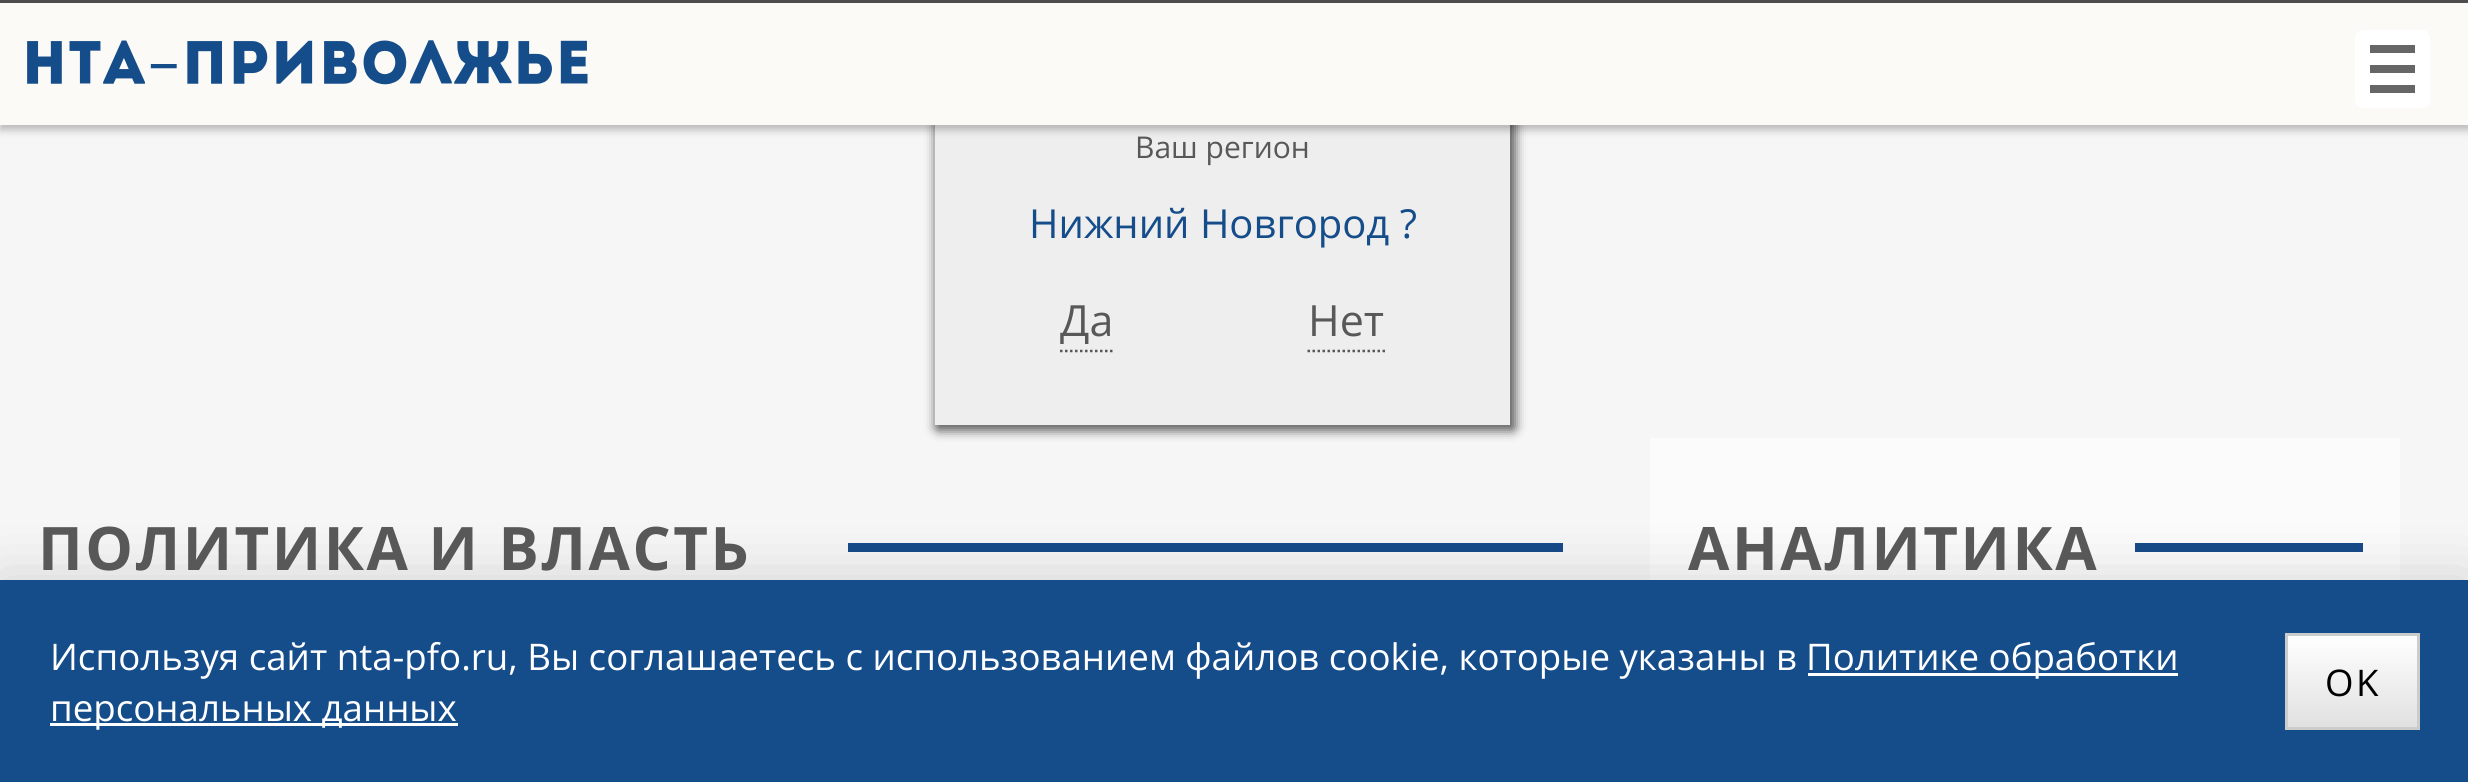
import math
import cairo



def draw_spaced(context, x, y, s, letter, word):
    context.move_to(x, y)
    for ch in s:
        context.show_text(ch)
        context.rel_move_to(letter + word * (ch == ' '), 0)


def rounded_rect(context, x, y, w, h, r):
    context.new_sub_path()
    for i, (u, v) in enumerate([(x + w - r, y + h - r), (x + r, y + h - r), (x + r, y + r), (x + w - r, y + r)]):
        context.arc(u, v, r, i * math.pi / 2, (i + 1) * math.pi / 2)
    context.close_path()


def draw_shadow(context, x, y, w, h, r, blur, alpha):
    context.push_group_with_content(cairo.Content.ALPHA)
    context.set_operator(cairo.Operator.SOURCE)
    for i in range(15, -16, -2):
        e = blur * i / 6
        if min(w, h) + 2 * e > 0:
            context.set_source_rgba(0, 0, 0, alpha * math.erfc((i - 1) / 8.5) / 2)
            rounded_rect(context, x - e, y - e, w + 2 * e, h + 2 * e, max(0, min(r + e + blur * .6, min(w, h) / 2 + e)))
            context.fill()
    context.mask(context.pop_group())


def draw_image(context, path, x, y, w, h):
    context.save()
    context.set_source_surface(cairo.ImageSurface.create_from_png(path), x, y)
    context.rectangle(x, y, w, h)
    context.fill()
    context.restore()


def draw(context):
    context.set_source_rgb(246 / 255, 246 / 255, 246 / 255)
    context.paint()
    context.set_source_rgb(102 / 255, 102 / 255, 102 / 255)
    draw_shadow(context, 938, 80, 575, 348, 0, 6, 1)
    draw_shadow(context, 938, 80, 575, 348, 0, 6, 1)
    context.set_source_rgb(238 / 255, 238 / 255, 238 / 255)
    context.rectangle(935, 125, 575, 300)
    context.fill()
    context.set_source_rgb(0, 0, 0)
    draw_shadow(context, 0, 5, 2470, 125, 0, 4, 0.25)
    context.set_source_rgb(251 / 255, 250 / 255, 247 / 255)
    context.rectangle(0, 3, 2468, 122)
    context.fill()
    context.set_source_rgb(77 / 255, 77 / 255, 77 / 255)
    context.rectangle(0, 0, 2468, 3)
    context.fill()
    draw_image(context, "images/1.png", 27, 40, 561, 45)
    context.set_source_rgb(1, 1, 1)
    rounded_rect(context, 2355, 30, 75, 78, 8)
    context.fill()
    context.set_source_rgb(102 / 255, 102 / 255, 102 / 255)
    context.rectangle(2370, 45, 45, 8)
    context.fill()
    context.rectangle(2370, 65, 45, 8)
    context.fill()
    context.rectangle(2370, 85, 45, 8)
    context.fill()
    context.new_path()
    context.move_to(1060, 351)
    context.line_to(1112.5, 351)
    context.set_source_rgb(88 / 255, 88 / 255, 88 / 255)
    context.set_line_width(2.5)
    context.set_dash([2.5, 2.5])
    context.stroke()
    context.new_path()
    context.move_to(1307.5, 351)
    context.line_to(1385, 351)
    context.stroke()
    context.set_source_rgb(21 / 255, 76 / 255, 138 / 255)
    context.rectangle(848, 543, 715, 9)
    context.fill()
    context.set_source_rgb(251 / 255, 251 / 255, 251 / 255)
    context.rectangle(1650, 438, 750, 142)
    context.fill()
    context.set_source_rgb(21 / 255, 76 / 255, 138 / 255)
    context.rectangle(2135, 543, 228, 9)
    context.fill()
    context.set_source_rgb(0, 0, 0)
    draw_shadow(context, 0, 580, 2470, 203, 0, 31, 0.15)
    context.set_source_rgb(21 / 255, 76 / 255, 138 / 255)
    context.rectangle(0, 580, 2468, 202)
    context.fill()
    context.set_source_rgb(1, 1, 1)
    context.rectangle(1808, 673, 370, 3)
    context.fill()
    context.rectangle(50, 723, 408, 3)
    context.fill()
    gradient = cairo.LinearGradient(2353, 635, 2353, 728)
    gradient.add_color_stop_rgba(0, 1, 1, 1, 1)
    gradient.add_color_stop_rgba(1, 224 / 255, 224 / 255, 224 / 255, 1)
    context.set_source(gradient)
    context.rectangle(2288, 636, 129, 91)
    context.fill()
    context.rectangle(2286.5, 634.5, 132, 94)
    context.set_source_rgb(204 / 255, 204 / 255, 204 / 255)
    context.set_line_width(3)
    context.set_dash([])
    context.stroke()
    context.select_font_face("Open Sans")
    context.set_font_size(30)
    context.set_source_rgb(88 / 255, 88 / 255, 88 / 255)
    context.move_to(1135, 158)
    context.show_text("Ваш регион")
    context.set_font_size(40)
    context.set_source_rgb(21 / 255, 76 / 255, 138 / 255)
    context.move_to(1029, 238)
    context.show_text("Нижний Новгород ?")
    context.set_font_size(43)
    context.set_source_rgb(88 / 255, 88 / 255, 88 / 255)
    context.move_to(1060, 336)
    context.show_text("Да")
    context.move_to(1308, 336)
    context.show_text("Нет")
    context.select_font_face("Open Sans", cairo.FontSlant.NORMAL, cairo.FontWeight.BOLD)
    context.set_font_size(60)
    draw_spaced(context, 38, 570, "ПОЛИТИКА И ВЛАСТЬ", 2.5, 0)
    draw_spaced(context, 1688, 570, "АНАЛИТИКА", 2.5, 0)
    context.select_font_face("Open Sans")
    context.set_font_size(36.65)
    context.set_source_rgb(1, 1, 1)
    context.move_to(50, 670)
    context.show_text("Используя сайт nta-pfo.ru, Вы соглашаетесь с использованием файлов cookie, которые указаны в")
    context.move_to(1806, 670)
    context.show_text("Политике обработки")
    context.move_to(50, 721)
    context.show_text("персональных данных")
    context.set_source_rgb(0, 0, 0)
    draw_spaced(context, 2325, 696, "OK", 2.5, 0)


surface = cairo.ImageSurface(cairo.Format.RGB24, 2468, 782)
context = cairo.Context(surface)
options = cairo.FontOptions()
options.set_hint_metrics(cairo.HintMetrics.OFF)
options.set_hint_style(cairo.HintStyle.NONE)
context.set_font_options(options)
context.set_miter_limit(4)
draw(context)
surface.write_to_png("out.png")
